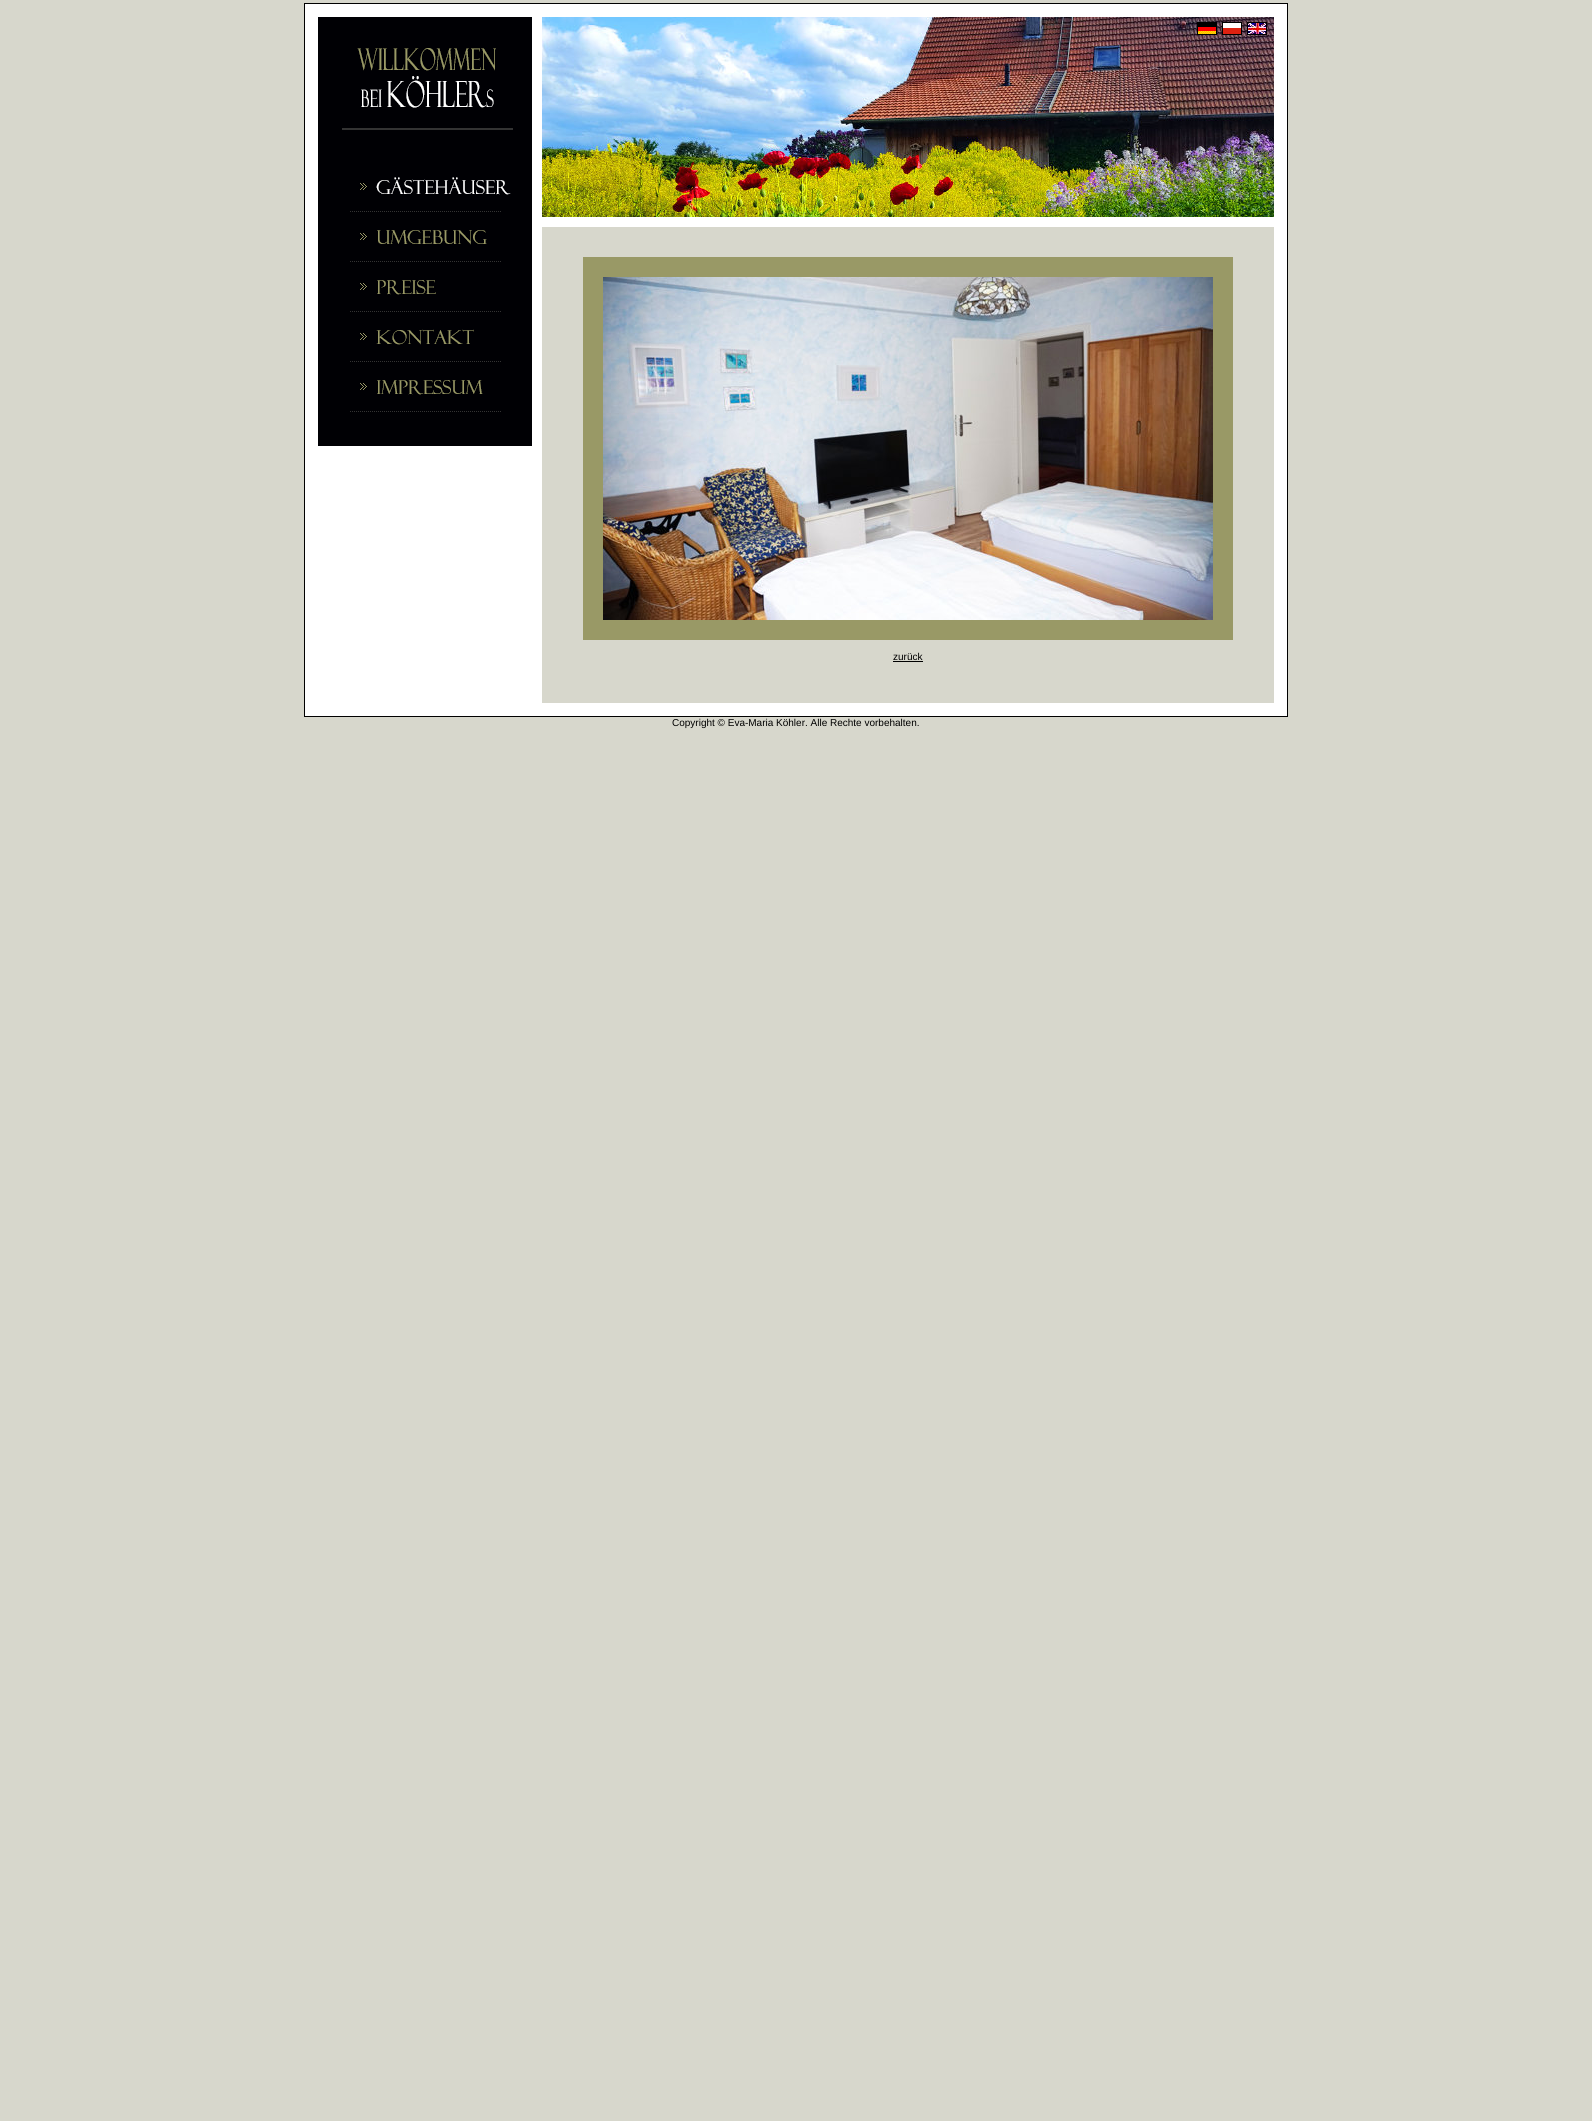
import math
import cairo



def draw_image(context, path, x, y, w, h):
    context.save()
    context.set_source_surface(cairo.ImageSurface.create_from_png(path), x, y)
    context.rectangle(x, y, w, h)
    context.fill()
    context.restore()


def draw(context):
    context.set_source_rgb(215 / 255, 215 / 255, 204 / 255)
    context.paint()
    context.set_source_rgb(0, 0, 0)
    context.rectangle(304, 3, 984, 714)
    context.fill()
    context.set_source_rgb(1, 1, 1)
    context.rectangle(305, 4, 982, 712)
    context.fill()
    context.set_source_rgb(0, 0, 4 / 255)
    context.rectangle(318, 17, 214, 429)
    context.fill()
    draw_image(context, "images/1.png", 342, 48, 171, 82)
    draw_image(context, "images/2.png", 350, 177, 161, 35)
    draw_image(context, "images/3.png", 350, 230, 151, 32)
    draw_image(context, "images/4.png", 350, 280, 151, 32)
    draw_image(context, "images/5.png", 350, 329, 151, 33)
    draw_image(context, "images/6.png", 350, 380, 151, 32)
    draw_image(context, "images/7.png", 542, 17, 732, 200)
    draw_image(context, "images/8.png", 1197, 22, 20, 13)
    draw_image(context, "images/9.png", 1222, 22, 20, 13)
    draw_image(context, "images/10.png", 1247, 22, 20, 13)
    context.set_source_rgb(215 / 255, 215 / 255, 204 / 255)
    context.rectangle(542, 227, 732, 476)
    context.fill()
    context.set_source_rgb(153 / 255, 153 / 255, 102 / 255)
    context.rectangle(583, 257, 650, 383)
    context.fill()
    draw_image(context, "images/11.png", 603, 277, 610, 343)
    context.set_source_rgb(0, 0, 0)
    context.rectangle(893, 661, 30, 1)
    context.fill()
    context.select_font_face("Liberation Sans")
    context.set_font_size(10)
    context.move_to(893, 660)
    context.show_text("zurück")
    context.move_to(672, 726)
    context.show_text("Copyright © Eva-Maria Köhler. Alle Rechte vorbehalten.")


surface = cairo.ImageSurface(cairo.Format.RGB24, 1592, 2121)
context = cairo.Context(surface)
options = cairo.FontOptions()
options.set_hint_metrics(cairo.HintMetrics.OFF)
options.set_hint_style(cairo.HintStyle.NONE)
context.set_font_options(options)
context.set_miter_limit(4)
draw(context)
surface.write_to_png("out.png")
